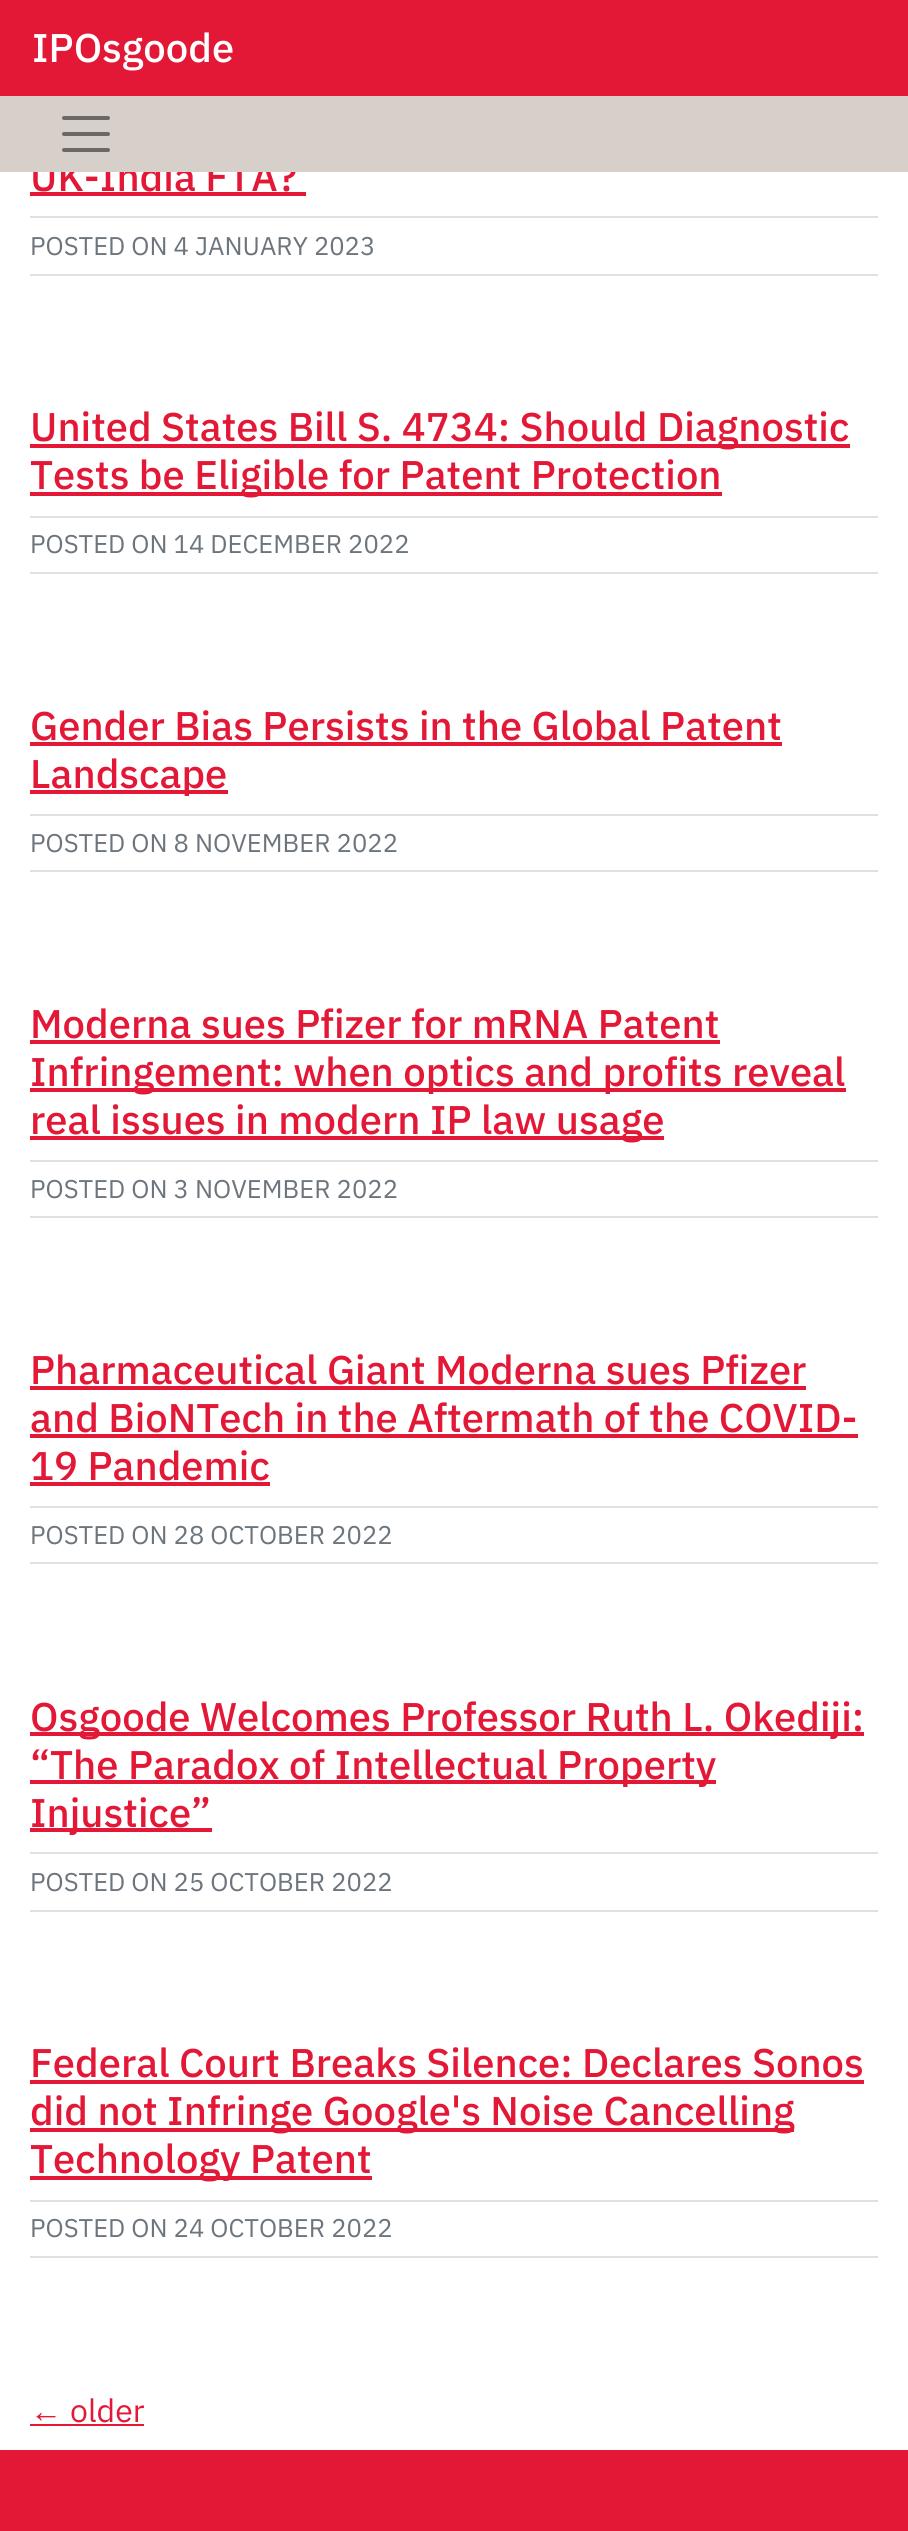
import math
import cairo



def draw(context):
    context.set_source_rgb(1, 1, 1)
    context.paint()
    context.set_source_rgb(227 / 255, 24 / 255, 55 / 255)
    context.rectangle(0, 0, 908, 96)
    context.fill()
    context.rectangle(30, 192, 276, 4)
    context.fill()
    context.set_source_rgb(222 / 255, 226 / 255, 230 / 255)
    context.rectangle(30, 216, 848, 2)
    context.fill()
    context.rectangle(30, 274, 848, 2)
    context.fill()
    context.set_source_rgb(227 / 255, 24 / 255, 55 / 255)
    context.rectangle(30, 444, 820, 4)
    context.fill()
    context.rectangle(30, 492, 692, 4)
    context.fill()
    context.set_source_rgb(222 / 255, 226 / 255, 230 / 255)
    context.rectangle(30, 516, 848, 2)
    context.fill()
    context.rectangle(30, 572, 848, 2)
    context.fill()
    context.set_source_rgb(227 / 255, 24 / 255, 55 / 255)
    context.rectangle(30, 742, 752, 4)
    context.fill()
    context.rectangle(30, 790, 198, 4)
    context.fill()
    context.set_source_rgb(222 / 255, 226 / 255, 230 / 255)
    context.rectangle(30, 814, 848, 2)
    context.fill()
    context.rectangle(30, 870, 848, 2)
    context.fill()
    context.set_source_rgb(227 / 255, 24 / 255, 55 / 255)
    context.rectangle(30, 1040, 690, 4)
    context.fill()
    context.rectangle(30, 1088, 816, 4)
    context.fill()
    context.rectangle(30, 1136, 634, 4)
    context.fill()
    context.set_source_rgb(222 / 255, 226 / 255, 230 / 255)
    context.rectangle(30, 1160, 848, 2)
    context.fill()
    context.rectangle(30, 1216, 848, 2)
    context.fill()
    context.set_source_rgb(227 / 255, 24 / 255, 55 / 255)
    context.rectangle(30, 1386, 776, 4)
    context.fill()
    context.rectangle(30, 1434, 828, 4)
    context.fill()
    context.rectangle(30, 1482, 240, 4)
    context.fill()
    context.set_source_rgb(222 / 255, 226 / 255, 230 / 255)
    context.rectangle(30, 1506, 848, 2)
    context.fill()
    context.rectangle(30, 1562, 848, 2)
    context.fill()
    context.set_source_rgb(227 / 255, 24 / 255, 55 / 255)
    context.rectangle(30, 1732, 834, 4)
    context.fill()
    context.rectangle(30, 1780, 686, 4)
    context.fill()
    context.rectangle(30, 1828, 182, 4)
    context.fill()
    context.set_source_rgb(222 / 255, 226 / 255, 230 / 255)
    context.rectangle(30, 1852, 848, 2)
    context.fill()
    context.rectangle(30, 1910, 848, 2)
    context.fill()
    context.set_source_rgb(227 / 255, 24 / 255, 55 / 255)
    context.rectangle(30, 2080, 834, 4)
    context.fill()
    context.rectangle(30, 2128, 764, 4)
    context.fill()
    context.rectangle(30, 2176, 342, 4)
    context.fill()
    context.set_source_rgb(222 / 255, 226 / 255, 230 / 255)
    context.rectangle(30, 2200, 848, 2)
    context.fill()
    context.rectangle(30, 2256, 848, 2)
    context.fill()
    context.set_source_rgb(227 / 255, 24 / 255, 55 / 255)
    context.rectangle(30, 2424, 114, 2)
    context.fill()
    context.rectangle(0, 2450, 908, 81)
    context.fill()
    context.select_font_face("IBM Plex Sans Medium")
    context.set_font_size(40)
    context.set_source_rgb(1, 1, 1)
    context.move_to(32, 62)
    context.show_text("IPOsgoode")
    context.set_source_rgb(227 / 255, 24 / 255, 55 / 255)
    context.move_to(30, 191)
    context.show_text("UK-India FTA?")
    context.set_source_rgb(214 / 255, 207 / 255, 202 / 255)
    context.rectangle(0, 96, 908, 76)
    context.fill()
    context.new_path()
    context.move_to(64, 118)
    context.line_to(108, 118)
    context.move_to(64, 134)
    context.line_to(108, 134)
    context.move_to(64, 150)
    context.line_to(108, 150)
    context.set_source_rgb(107 / 255, 104 / 255, 101 / 255)
    context.set_line_width(4)
    context.set_line_cap(cairo.LineCap.ROUND)
    context.stroke()
    context.select_font_face("IBM Plex Sans")
    context.set_font_size(25.6)
    context.set_source_rgb(108 / 255, 117 / 255, 125 / 255)
    context.move_to(30, 255)
    context.show_text("POSTED ON 4 JANUARY 2023")
    context.select_font_face("IBM Plex Sans Medium")
    context.set_font_size(40)
    context.set_source_rgb(227 / 255, 24 / 255, 55 / 255)
    context.move_to(30, 441)
    context.show_text("United States Bill S. 4734: Should Diagnostic")
    context.move_to(30, 489)
    context.show_text("Tests be Eligible for Patent Protection")
    context.select_font_face("IBM Plex Sans")
    context.set_font_size(25.6)
    context.set_source_rgb(108 / 255, 117 / 255, 125 / 255)
    context.move_to(30, 553)
    context.show_text("POSTED ON 14 DECEMBER 2022")
    context.select_font_face("IBM Plex Sans Medium")
    context.set_font_size(40)
    context.set_source_rgb(227 / 255, 24 / 255, 55 / 255)
    context.move_to(30, 740)
    context.show_text("Gender Bias Persists in the Global Patent")
    context.move_to(30, 788)
    context.show_text("Landscape")
    context.select_font_face("IBM Plex Sans")
    context.set_font_size(25.6)
    context.set_source_rgb(108 / 255, 117 / 255, 125 / 255)
    context.move_to(30, 852)
    context.show_text("POSTED ON 8 NOVEMBER 2022")
    context.select_font_face("IBM Plex Sans Medium")
    context.set_font_size(40)
    context.set_source_rgb(227 / 255, 24 / 255, 55 / 255)
    context.move_to(30, 1038)
    context.show_text("Moderna sues Pfizer for mRNA Patent")
    context.move_to(30, 1086)
    context.show_text("Infringement: when optics and profits reveal")
    context.move_to(30, 1134)
    context.show_text("real issues in modern IP law usage")
    context.select_font_face("IBM Plex Sans")
    context.set_font_size(25.6)
    context.set_source_rgb(108 / 255, 117 / 255, 125 / 255)
    context.move_to(30, 1198)
    context.show_text("POSTED ON 3 NOVEMBER 2022")
    context.select_font_face("IBM Plex Sans Medium")
    context.set_font_size(40)
    context.set_source_rgb(227 / 255, 24 / 255, 55 / 255)
    context.move_to(30, 1384)
    context.show_text("Pharmaceutical Giant Moderna sues Pfizer")
    context.move_to(30, 1432)
    context.show_text("and BioNTech in the Aftermath of the COVID-")
    context.move_to(30, 1480)
    context.show_text("19 Pandemic")
    context.select_font_face("IBM Plex Sans")
    context.set_font_size(25.6)
    context.set_source_rgb(108 / 255, 117 / 255, 125 / 255)
    context.move_to(30, 1544)
    context.show_text("POSTED ON 28 OCTOBER 2022")
    context.select_font_face("IBM Plex Sans Medium")
    context.set_font_size(40)
    context.set_source_rgb(227 / 255, 24 / 255, 55 / 255)
    context.move_to(30, 1731)
    context.show_text("Osgoode Welcomes Professor Ruth L. Okediji:")
    context.move_to(30, 1779)
    context.show_text("“The Paradox of Intellectual Property")
    context.move_to(30, 1827)
    context.show_text("Injustice”")
    context.select_font_face("IBM Plex Sans")
    context.set_font_size(25.6)
    context.set_source_rgb(108 / 255, 117 / 255, 125 / 255)
    context.move_to(30, 1891)
    context.show_text("POSTED ON 25 OCTOBER 2022")
    context.select_font_face("IBM Plex Sans Medium")
    context.set_font_size(40)
    context.set_source_rgb(227 / 255, 24 / 255, 55 / 255)
    context.move_to(30, 2077)
    context.show_text("Federal Court Breaks Silence: Declares Sonos")
    context.move_to(30, 2125)
    context.show_text("did not Infringe Google's Noise Cancelling")
    context.move_to(30, 2173)
    context.show_text("Technology Patent")
    context.select_font_face("IBM Plex Sans")
    context.set_font_size(25.6)
    context.set_source_rgb(108 / 255, 117 / 255, 125 / 255)
    context.move_to(30, 2237)
    context.show_text("POSTED ON 24 OCTOBER 2022")
    context.select_font_face("Liberation Sans")
    context.set_font_size(32)
    context.set_source_rgb(227 / 255, 24 / 255, 55 / 255)
    context.move_to(30, 2422)
    context.show_text("←")
    context.select_font_face("IBM Plex Sans")
    context.move_to(70, 2422)
    context.show_text("older")


surface = cairo.ImageSurface(cairo.Format.RGB24, 908, 2531)
context = cairo.Context(surface)
options = cairo.FontOptions()
options.set_hint_metrics(cairo.HintMetrics.OFF)
options.set_hint_style(cairo.HintStyle.NONE)
context.set_font_options(options)
context.set_miter_limit(4)
draw(context)
surface.write_to_png("out.png")
